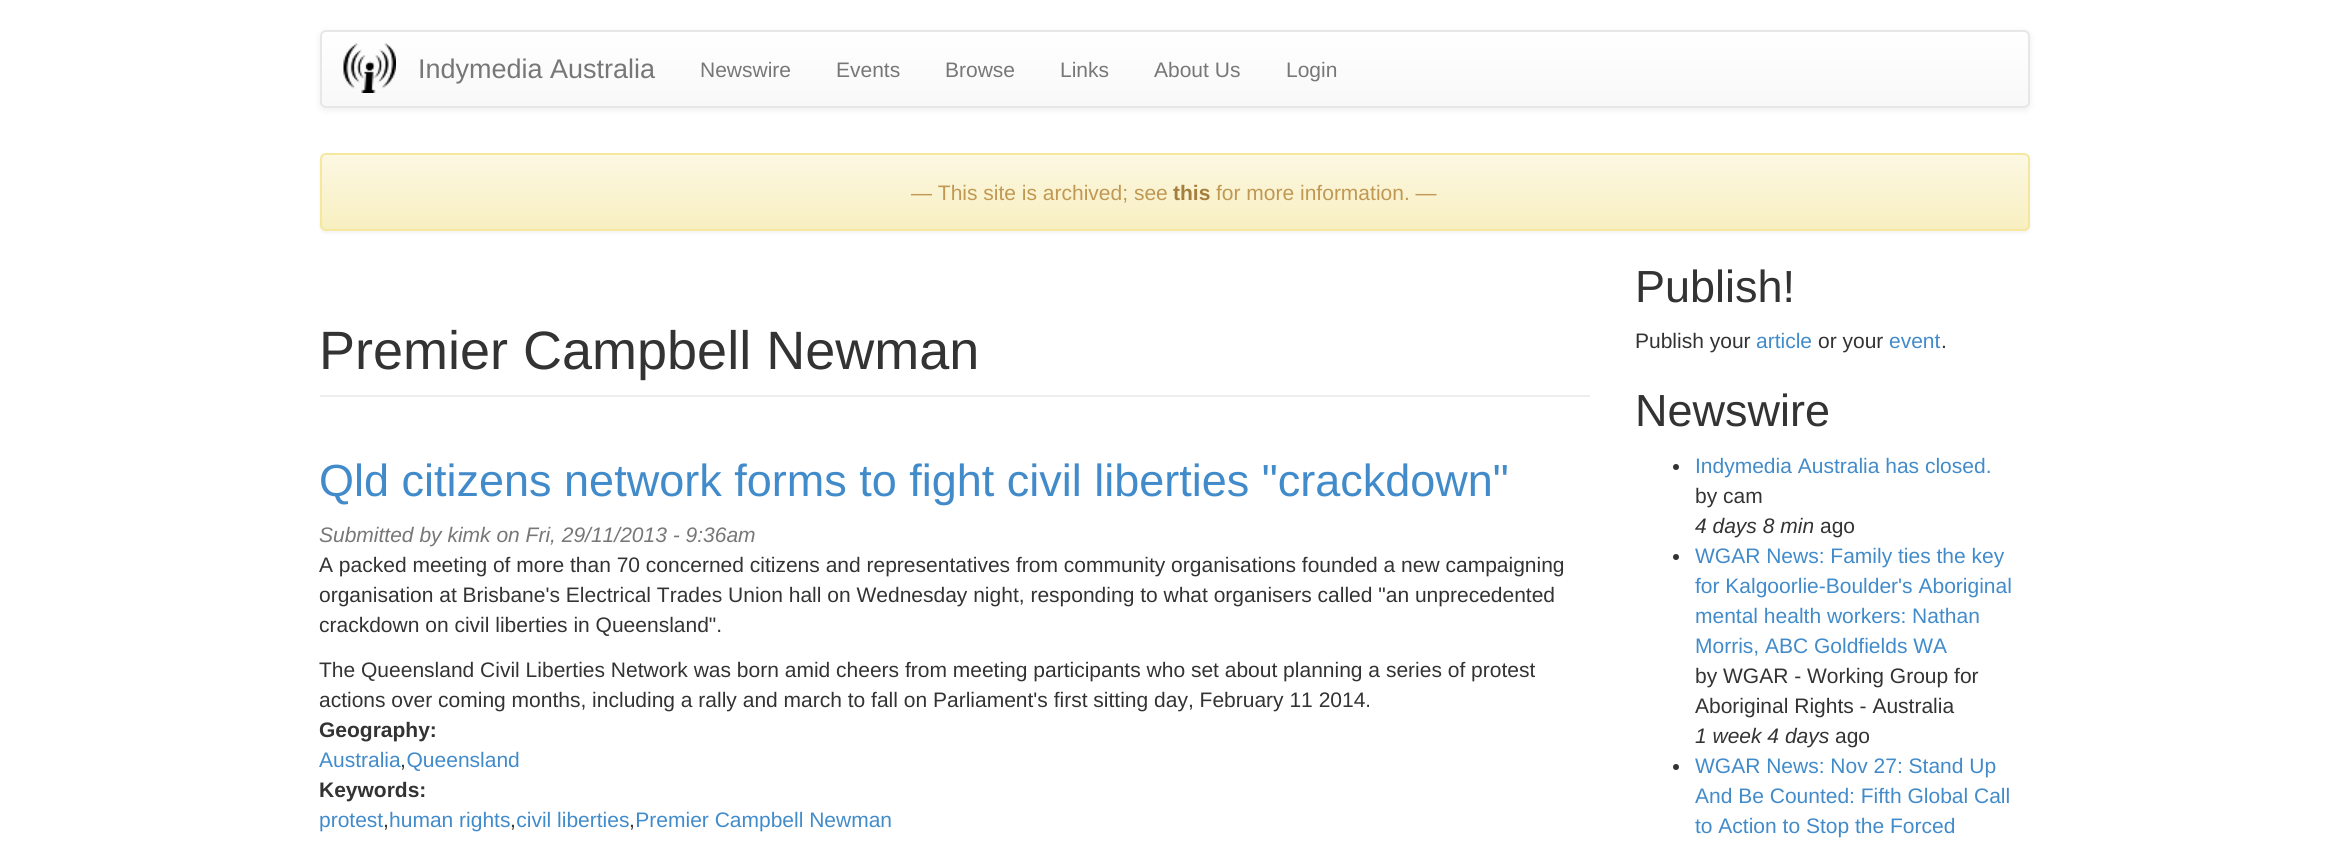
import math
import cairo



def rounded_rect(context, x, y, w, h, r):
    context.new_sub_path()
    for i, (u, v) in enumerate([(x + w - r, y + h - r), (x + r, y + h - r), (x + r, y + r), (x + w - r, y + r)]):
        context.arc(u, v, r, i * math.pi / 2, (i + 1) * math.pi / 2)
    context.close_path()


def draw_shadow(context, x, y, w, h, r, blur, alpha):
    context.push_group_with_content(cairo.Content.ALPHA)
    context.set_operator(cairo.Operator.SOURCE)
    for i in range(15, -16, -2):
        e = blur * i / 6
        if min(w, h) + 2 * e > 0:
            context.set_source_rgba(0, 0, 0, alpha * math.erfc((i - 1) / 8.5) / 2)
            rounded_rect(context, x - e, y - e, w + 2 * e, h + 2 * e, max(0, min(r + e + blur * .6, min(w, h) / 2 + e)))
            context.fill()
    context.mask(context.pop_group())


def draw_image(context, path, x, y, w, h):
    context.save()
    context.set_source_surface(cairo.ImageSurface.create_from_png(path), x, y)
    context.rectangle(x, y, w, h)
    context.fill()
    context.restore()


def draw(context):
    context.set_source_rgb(1, 1, 1)
    context.paint()
    context.set_source_rgb(0, 0, 0)
    draw_shadow(context, 320, 32, 1710, 78, 6, 4, 0.07)
    context.save()
    rounded_rect(context, 320, 30, 1710, 78, 6)
    context.clip()
    gradient = cairo.LinearGradient(1175, 31, 1175, 107)
    gradient.add_color_stop_rgba(0, 1, 1, 1, 1)
    gradient.add_color_stop_rgba(1, 248 / 255, 248 / 255, 248 / 255, 1)
    context.set_source(gradient)
    context.rectangle(320, 32, 1710, 75)
    context.fill()
    context.restore()
    rounded_rect(context, 321, 31, 1708, 76, 5)
    context.set_source_rgb(231 / 255, 231 / 255, 231 / 255)
    context.stroke()
    draw_image(context, "images/1.png", 343, 43, 53, 50)
    context.set_source_rgb(0, 0, 0)
    draw_shadow(context, 320, 155, 1710, 78, 6, 1.5, 0.05)
    context.save()
    rounded_rect(context, 320, 153, 1710, 78, 6)
    context.clip()
    gradient = cairo.LinearGradient(1175, 154, 1175, 230)
    gradient.add_color_stop_rgba(0, 252 / 255, 248 / 255, 227 / 255, 1)
    gradient.add_color_stop_rgba(1, 248 / 255, 239 / 255, 192 / 255, 1)
    context.set_source(gradient)
    context.rectangle(320, 155, 1710, 75)
    context.fill()
    context.restore()
    context.set_source_rgb(253 / 255, 250 / 255, 233 / 255)
    context.new_path()
    context.move_to(326, 156)
    context.line_to(2024, 156)
    context.curve_to(2026, 156, 2028, 158, 2028, 160)
    context.curve_to(2028, 157, 2026, 155, 2023, 155)
    context.line_to(326, 155)
    context.curve_to(323, 155, 321, 157, 321, 160)
    context.curve_to(321, 158, 323, 156, 326, 156)
    context.close_path()
    context.fill()
    rounded_rect(context, 321, 154, 1708, 76, 5)
    context.set_source_rgb(245 / 255, 231 / 255, 158 / 255)
    context.stroke()
    context.set_source_rgb(238 / 255, 238 / 255, 238 / 255)
    context.rectangle(320, 395, 1270, 2)
    context.fill()
    context.set_source_rgb(51 / 255, 51 / 255, 51 / 255)
    context.arc(1676, 467, 3, 0, 2 * math.pi)
    context.fill()
    context.arc(1676, 557, 3, 0, 2 * math.pi)
    context.fill()
    context.arc(1676, 767, 3, 0, 2 * math.pi)
    context.fill()
    context.select_font_face("Liberation Sans")
    context.set_font_size(27)
    context.set_source_rgb(119 / 255, 119 / 255, 119 / 255)
    context.move_to(418, 78)
    context.show_text("Indymedia Australia")
    context.set_font_size(21)
    context.move_to(700, 77)
    context.show_text("Newswire")
    context.move_to(836, 77)
    context.show_text("Events")
    context.move_to(945, 77)
    context.show_text("Browse")
    context.move_to(1060, 77)
    context.show_text("Links")
    context.move_to(1154, 77)
    context.show_text("About Us")
    context.move_to(1286, 77)
    context.show_text("Login")
    context.set_source_rgb(192 / 255, 152 / 255, 83 / 255)
    context.move_to(911, 200)
    context.show_text("— This site is archived; see")
    context.select_font_face("Liberation Sans", cairo.FontSlant.NORMAL, cairo.FontWeight.BOLD)
    context.set_source_rgb(164 / 255, 126 / 255, 60 / 255)
    context.move_to(1173, 200)
    context.show_text("this")
    context.select_font_face("Liberation Sans")
    context.set_source_rgb(192 / 255, 152 / 255, 83 / 255)
    context.move_to(1216, 200)
    context.show_text("for more information. —")
    context.set_font_size(54)
    context.set_source_rgb(51 / 255, 51 / 255, 51 / 255)
    context.move_to(319, 369)
    context.show_text("Premier Campbell Newman")
    context.set_font_size(45)
    context.set_source_rgb(66 / 255, 139 / 255, 202 / 255)
    context.move_to(319, 496)
    context.show_text("Qld citizens network forms to fight civil liberties \"crackdown\"")
    context.select_font_face("Liberation Sans", cairo.FontSlant.ITALIC)
    context.set_font_size(21)
    context.set_source_rgb(119 / 255, 119 / 255, 119 / 255)
    context.move_to(319, 542)
    context.show_text("Submitted by kimk on Fri, 29/11/2013 - 9:36am")
    context.select_font_face("Liberation Sans")
    context.set_source_rgb(51 / 255, 51 / 255, 51 / 255)
    context.move_to(319, 572)
    context.show_text("A packed meeting of more than 70 concerned citizens and representatives from community organisations founded a new campaigning")
    context.move_to(319, 602)
    context.show_text("organisation at Brisbane's Electrical Trades Union hall on Wednesday night, responding to what organisers called \"an unprecedented")
    context.move_to(319, 632)
    context.show_text("crackdown on civil liberties in Queensland\".")
    context.move_to(319, 677)
    context.show_text("The Queensland Civil Liberties Network was born amid cheers from meeting participants who set about planning a series of protest")
    context.move_to(319, 707)
    context.show_text("actions over coming months, including a rally and march to fall on Parliament's first sitting day, February 11 2014.")
    context.select_font_face("Liberation Sans", cairo.FontSlant.NORMAL, cairo.FontWeight.BOLD)
    context.move_to(319, 737)
    context.show_text("Geography:")
    context.select_font_face("Liberation Sans")
    context.set_source_rgb(66 / 255, 139 / 255, 202 / 255)
    context.move_to(319, 767)
    context.show_text("Australia Queensland")
    context.set_source_rgb(51 / 255, 51 / 255, 51 / 255)
    context.move_to(400, 767)
    context.show_text(",")
    context.select_font_face("Liberation Sans", cairo.FontSlant.NORMAL, cairo.FontWeight.BOLD)
    context.move_to(319, 797)
    context.show_text("Keywords:")
    context.select_font_face("Liberation Sans")
    context.set_source_rgb(66 / 255, 139 / 255, 202 / 255)
    context.move_to(319, 827)
    context.show_text("protest human rights civil liberties Premier Campbell Newman")
    context.set_source_rgb(51 / 255, 51 / 255, 51 / 255)
    context.move_to(383, 827)
    context.show_text(",")
    context.move_to(510, 827)
    context.show_text(",")
    context.move_to(629, 827)
    context.show_text(",")
    context.set_font_size(45)
    context.move_to(1635, 302)
    context.show_text("Publish!")
    context.set_font_size(21)
    context.move_to(1635, 348)
    context.show_text("Publish your")
    context.set_source_rgb(66 / 255, 139 / 255, 202 / 255)
    context.move_to(1756, 348)
    context.show_text("article")
    context.set_source_rgb(51 / 255, 51 / 255, 51 / 255)
    context.move_to(1818, 348)
    context.show_text("or your")
    context.set_source_rgb(66 / 255, 139 / 255, 202 / 255)
    context.move_to(1889, 348)
    context.show_text("event")
    context.set_source_rgb(51 / 255, 51 / 255, 51 / 255)
    context.move_to(1941, 348)
    context.show_text(".")
    context.set_font_size(45)
    context.move_to(1635, 426)
    context.show_text("Newswire")
    context.set_font_size(21)
    context.set_source_rgb(66 / 255, 139 / 255, 202 / 255)
    context.move_to(1695, 473)
    context.show_text("Indymedia Australia has closed.")
    context.set_source_rgb(51 / 255, 51 / 255, 51 / 255)
    context.move_to(1695, 503)
    context.show_text("by cam")
    context.select_font_face("Liberation Sans", cairo.FontSlant.ITALIC)
    context.move_to(1695, 533)
    context.show_text("4 days 8 min")
    context.select_font_face("Liberation Sans")
    context.move_to(1820, 533)
    context.show_text("ago")
    context.set_source_rgb(66 / 255, 139 / 255, 202 / 255)
    context.move_to(1695, 563)
    context.show_text("WGAR News: Family ties the key")
    context.move_to(1695, 593)
    context.show_text("for Kalgoorlie-Boulder's Aboriginal")
    context.move_to(1695, 623)
    context.show_text("mental health workers: Nathan")
    context.move_to(1695, 653)
    context.show_text("Morris, ABC Goldfields WA")
    context.set_source_rgb(51 / 255, 51 / 255, 51 / 255)
    context.move_to(1695, 683)
    context.show_text("by WGAR - Working Group for")
    context.move_to(1695, 713)
    context.show_text("Aboriginal Rights - Australia")
    context.select_font_face("Liberation Sans", cairo.FontSlant.ITALIC)
    context.move_to(1695, 743)
    context.show_text("1 week 4 days")
    context.select_font_face("Liberation Sans")
    context.move_to(1835, 743)
    context.show_text("ago")
    context.set_source_rgb(66 / 255, 139 / 255, 202 / 255)
    context.move_to(1695, 773)
    context.show_text("WGAR News: Nov 27: Stand Up")
    context.move_to(1695, 803)
    context.show_text("And Be Counted: Fifth Global Call")
    context.move_to(1695, 833)
    context.show_text("to Action to Stop the Forced")


surface = cairo.ImageSurface(cairo.Format.RGB24, 2347, 842)
context = cairo.Context(surface)
options = cairo.FontOptions()
options.set_hint_metrics(cairo.HintMetrics.OFF)
options.set_hint_style(cairo.HintStyle.NONE)
context.set_font_options(options)
context.set_miter_limit(4)
draw(context)
surface.write_to_png("out.png")
